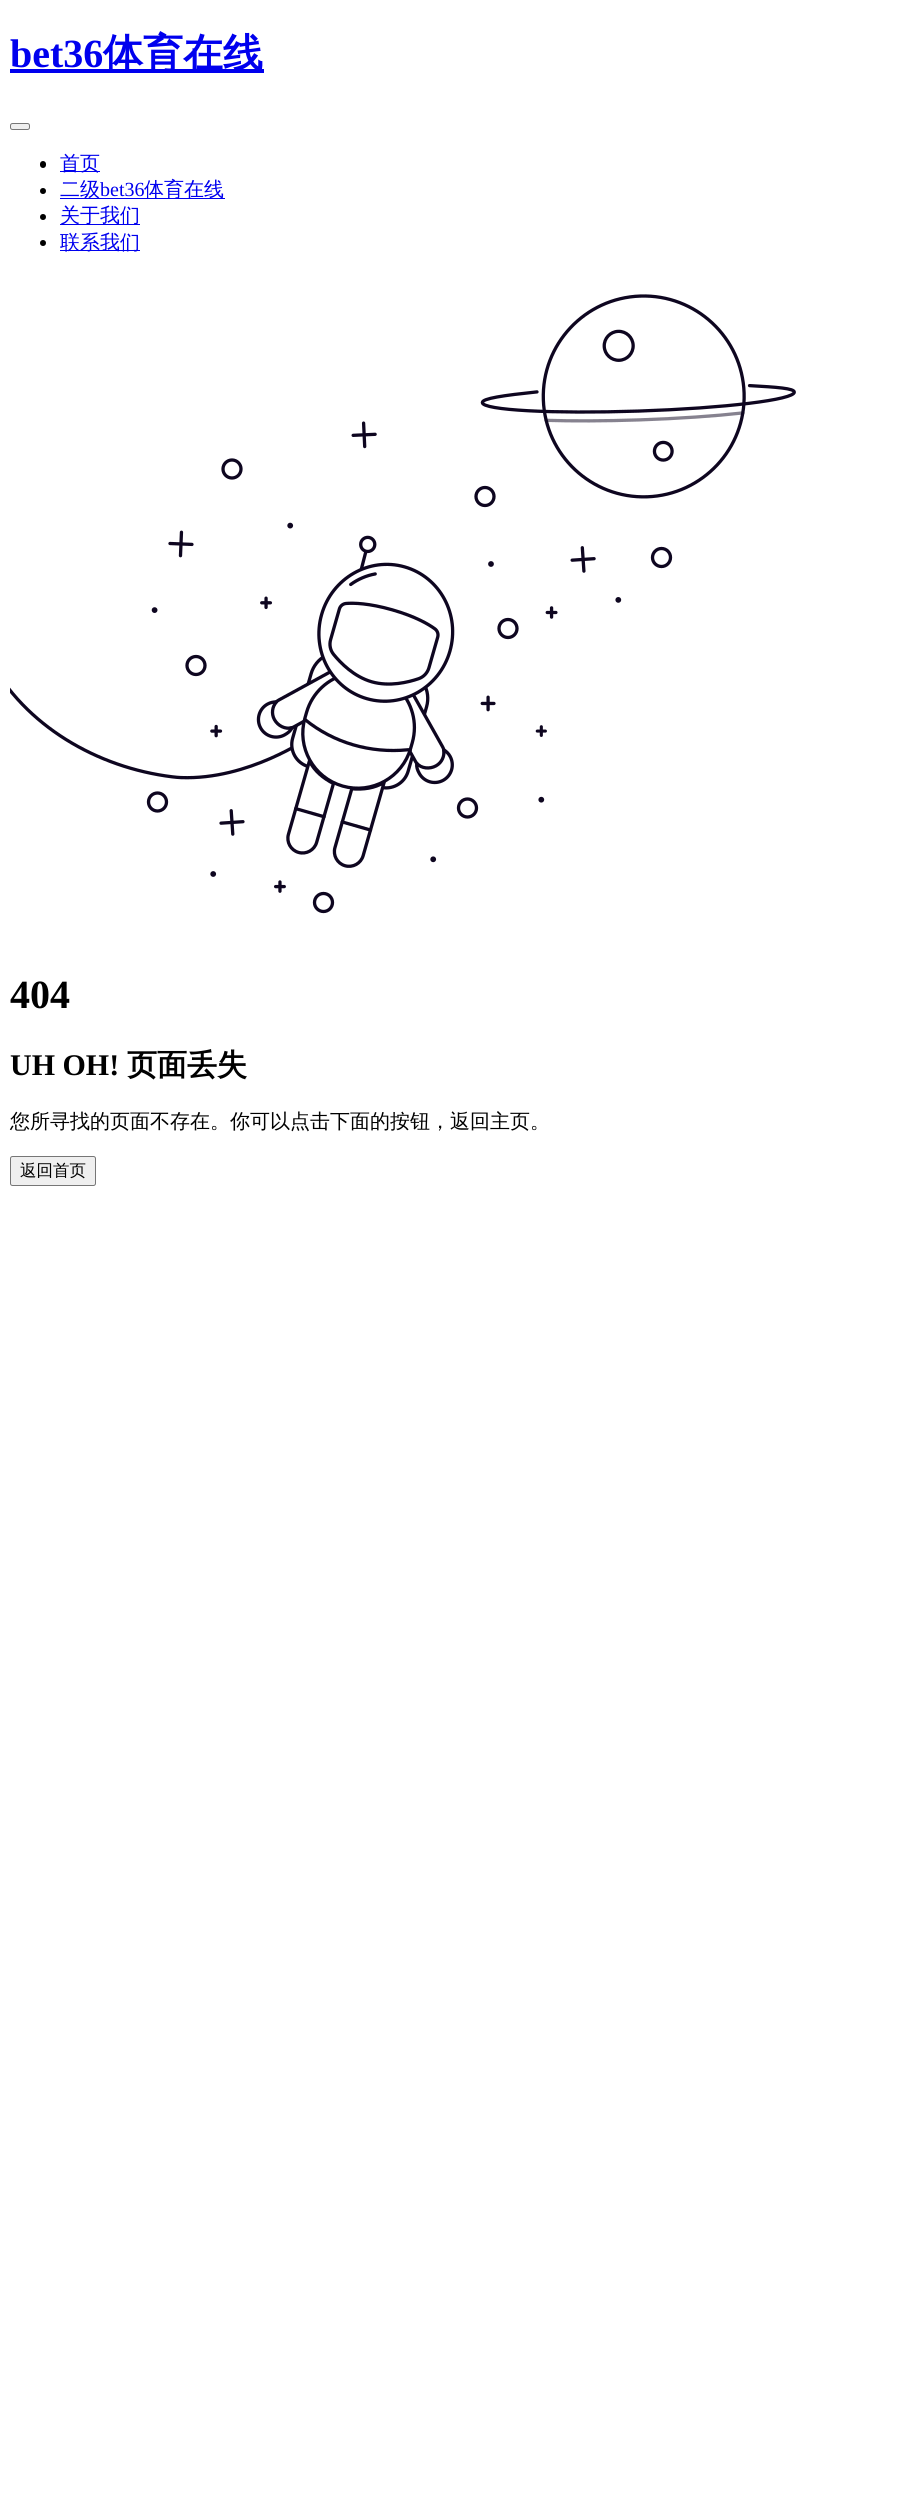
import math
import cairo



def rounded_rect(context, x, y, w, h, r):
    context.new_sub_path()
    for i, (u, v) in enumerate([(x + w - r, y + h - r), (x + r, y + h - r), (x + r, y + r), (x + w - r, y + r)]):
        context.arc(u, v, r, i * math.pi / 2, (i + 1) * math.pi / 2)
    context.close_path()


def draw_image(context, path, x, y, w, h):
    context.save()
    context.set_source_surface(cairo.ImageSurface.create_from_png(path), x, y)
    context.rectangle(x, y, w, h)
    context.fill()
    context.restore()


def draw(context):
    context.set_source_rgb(1, 1, 1)
    context.paint()
    context.set_source_rgb(0, 0, 238 / 255)
    context.rectangle(10, 69, 254, 4)
    context.fill()
    context.set_source_rgb(239 / 255, 239 / 255, 239 / 255)
    rounded_rect(context, 10.5, 123.5, 19, 6, 2)
    context.fill_preserve()
    context.set_source_rgb(118 / 255, 118 / 255, 118 / 255)
    context.set_line_width(1)
    context.stroke()
    context.set_source_rgb(0, 0, 0)
    rounded_rect(context, 40, 161, 6, 7, 3)
    context.fill()
    context.set_source_rgb(0, 0, 238 / 255)
    context.rectangle(60, 171, 40, 1)
    context.fill()
    context.set_source_rgb(0, 0, 0)
    context.arc(43, 191, 3, 0, 2 * math.pi)
    context.fill()
    context.set_source_rgb(0, 0, 238 / 255)
    context.rectangle(60, 198, 165, 1)
    context.fill()
    context.set_source_rgb(0, 0, 0)
    context.arc(43, 217, 3, 0, 2 * math.pi)
    context.fill()
    context.set_source_rgb(0, 0, 238 / 255)
    context.rectangle(60, 224, 80, 1)
    context.fill()
    context.set_source_rgb(0, 0, 0)
    context.arc(43, 243, 3, 0, 2 * math.pi)
    context.fill()
    context.set_source_rgb(0, 0, 238 / 255)
    context.rectangle(60, 250, 80, 1)
    context.fill()
    draw_image(context, "images/1.png", 10, 294, 786, 620)
    context.set_source_rgb(239 / 255, 239 / 255, 239 / 255)
    rounded_rect(context, 10.5, 1156.5, 85, 29, 2)
    context.fill_preserve()
    context.set_source_rgb(118 / 255, 118 / 255, 118 / 255)
    context.stroke()
    context.select_font_face("Liberation Serif", cairo.FontSlant.NORMAL, cairo.FontWeight.BOLD)
    context.set_font_size(40)
    context.set_source_rgb(0, 0, 238 / 255)
    context.move_to(10, 67)
    context.show_text("bet36")
    context.select_font_face("WenQuanYi Zen Hei", cairo.FontSlant.NORMAL, cairo.FontWeight.BOLD)
    context.move_to(103, 67)
    context.show_text("体育在线")
    context.select_font_face("WenQuanYi Zen Hei Medium")
    context.set_font_size(20)
    context.move_to(60, 170)
    context.show_text("首页")
    context.move_to(60, 196)
    context.show_text("二级")
    context.select_font_face("Liberation Serif")
    context.move_to(100, 196)
    context.show_text("bet36")
    context.select_font_face("WenQuanYi Zen Hei Medium")
    context.move_to(144, 196)
    context.show_text("体育在线")
    context.move_to(60, 222)
    context.show_text("关于我们")
    context.move_to(60, 249)
    context.show_text("联系我们")
    context.select_font_face("Liberation Serif", cairo.FontSlant.NORMAL, cairo.FontWeight.BOLD)
    context.set_font_size(40)
    context.set_source_rgb(0, 0, 0)
    context.move_to(10, 1008)
    context.show_text("404")
    context.set_font_size(30)
    context.move_to(10, 1075)
    context.show_text("UH OH!")
    context.select_font_face("WenQuanYi Zen Hei", cairo.FontSlant.NORMAL, cairo.FontWeight.BOLD)
    context.move_to(127, 1075)
    context.show_text("页面丢失")
    context.select_font_face("WenQuanYi Zen Hei Medium")
    context.set_font_size(20)
    context.move_to(10, 1128)
    context.show_text("您所寻找的页面不存在。你可以点击下面的按钮，返回主页。")
    context.set_font_size(16.5)
    context.move_to(20, 1176)
    context.show_text("返回首页")


surface = cairo.ImageSurface(cairo.Format.RGB24, 905, 2500)
context = cairo.Context(surface)
options = cairo.FontOptions()
options.set_hint_metrics(cairo.HintMetrics.OFF)
options.set_hint_style(cairo.HintStyle.NONE)
context.set_font_options(options)
context.set_miter_limit(4)
draw(context)
surface.write_to_png("out.png")
